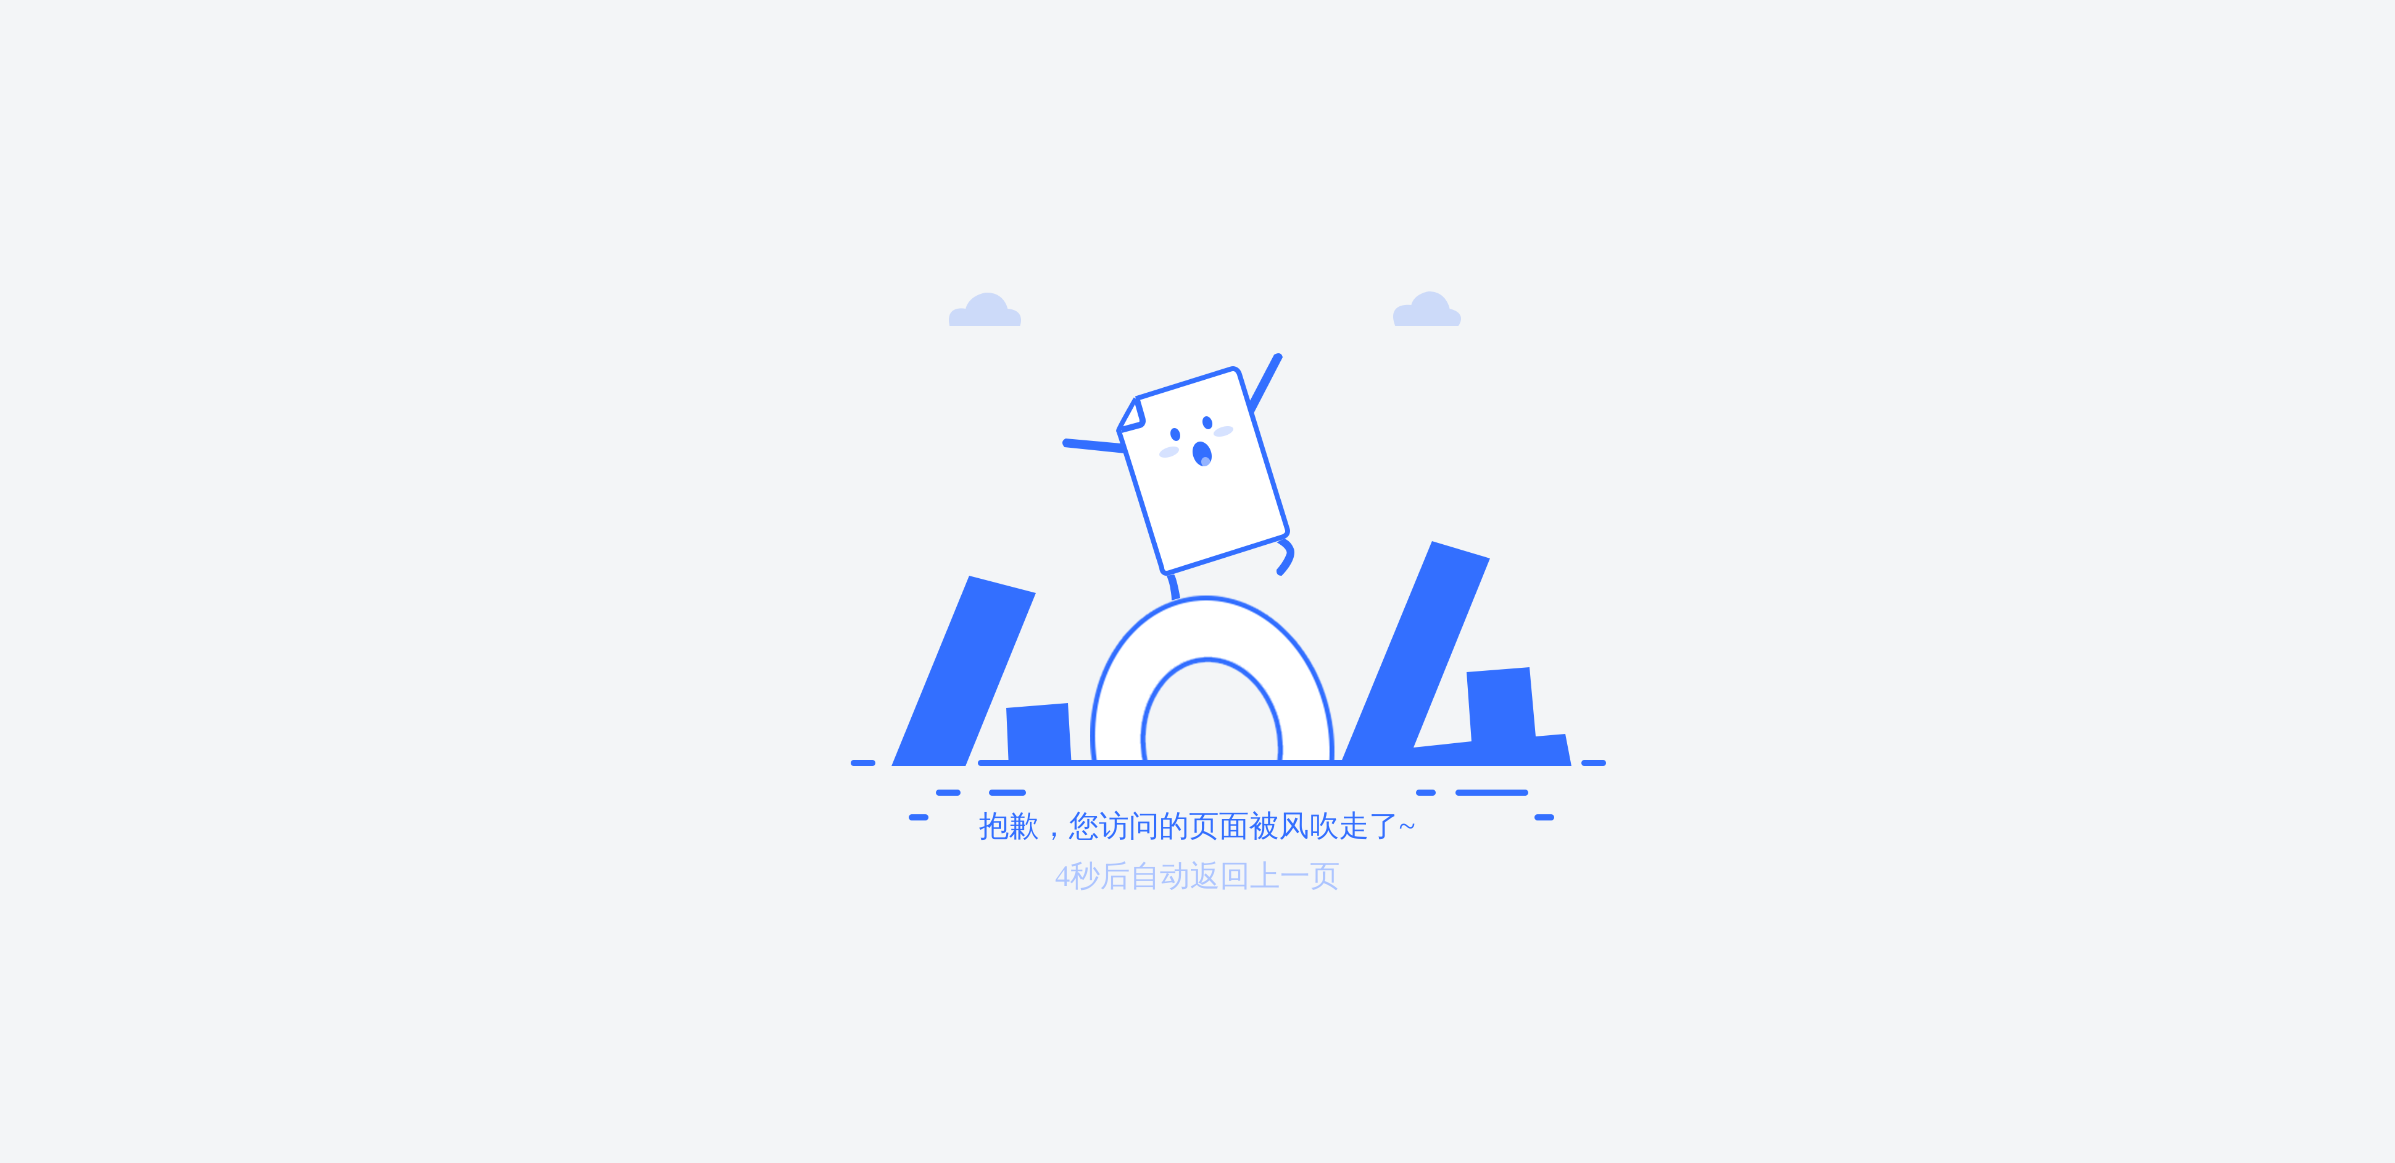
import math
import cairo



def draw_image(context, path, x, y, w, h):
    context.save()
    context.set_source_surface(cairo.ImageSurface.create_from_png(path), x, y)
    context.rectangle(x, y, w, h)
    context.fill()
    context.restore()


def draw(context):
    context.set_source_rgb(243 / 255, 245 / 255, 247 / 255)
    context.paint()
    draw_image(context, "images/1.png", 850, 291, 756, 530)
    context.select_font_face("WenQuanYi Zen Hei Medium")
    context.set_font_size(30)
    context.set_source_rgb(51 / 255, 111 / 255, 1)
    context.move_to(979, 836)
    context.show_text("抱歉，您访问的页面被风吹走了")
    context.select_font_face("Liberation Serif")
    context.move_to(1399, 836)
    context.show_text("~")
    context.set_source_rgb(173 / 255, 197 / 255, 1)
    context.move_to(1055, 886)
    context.show_text("4")
    context.select_font_face("WenQuanYi Zen Hei Medium")
    context.move_to(1070, 886)
    context.show_text("秒后自动返回上一页")


surface = cairo.ImageSurface(cairo.Format.RGB24, 2395, 1163)
context = cairo.Context(surface)
options = cairo.FontOptions()
options.set_hint_metrics(cairo.HintMetrics.OFF)
options.set_hint_style(cairo.HintStyle.NONE)
context.set_font_options(options)
context.set_miter_limit(4)
draw(context)
surface.write_to_png("out.png")
